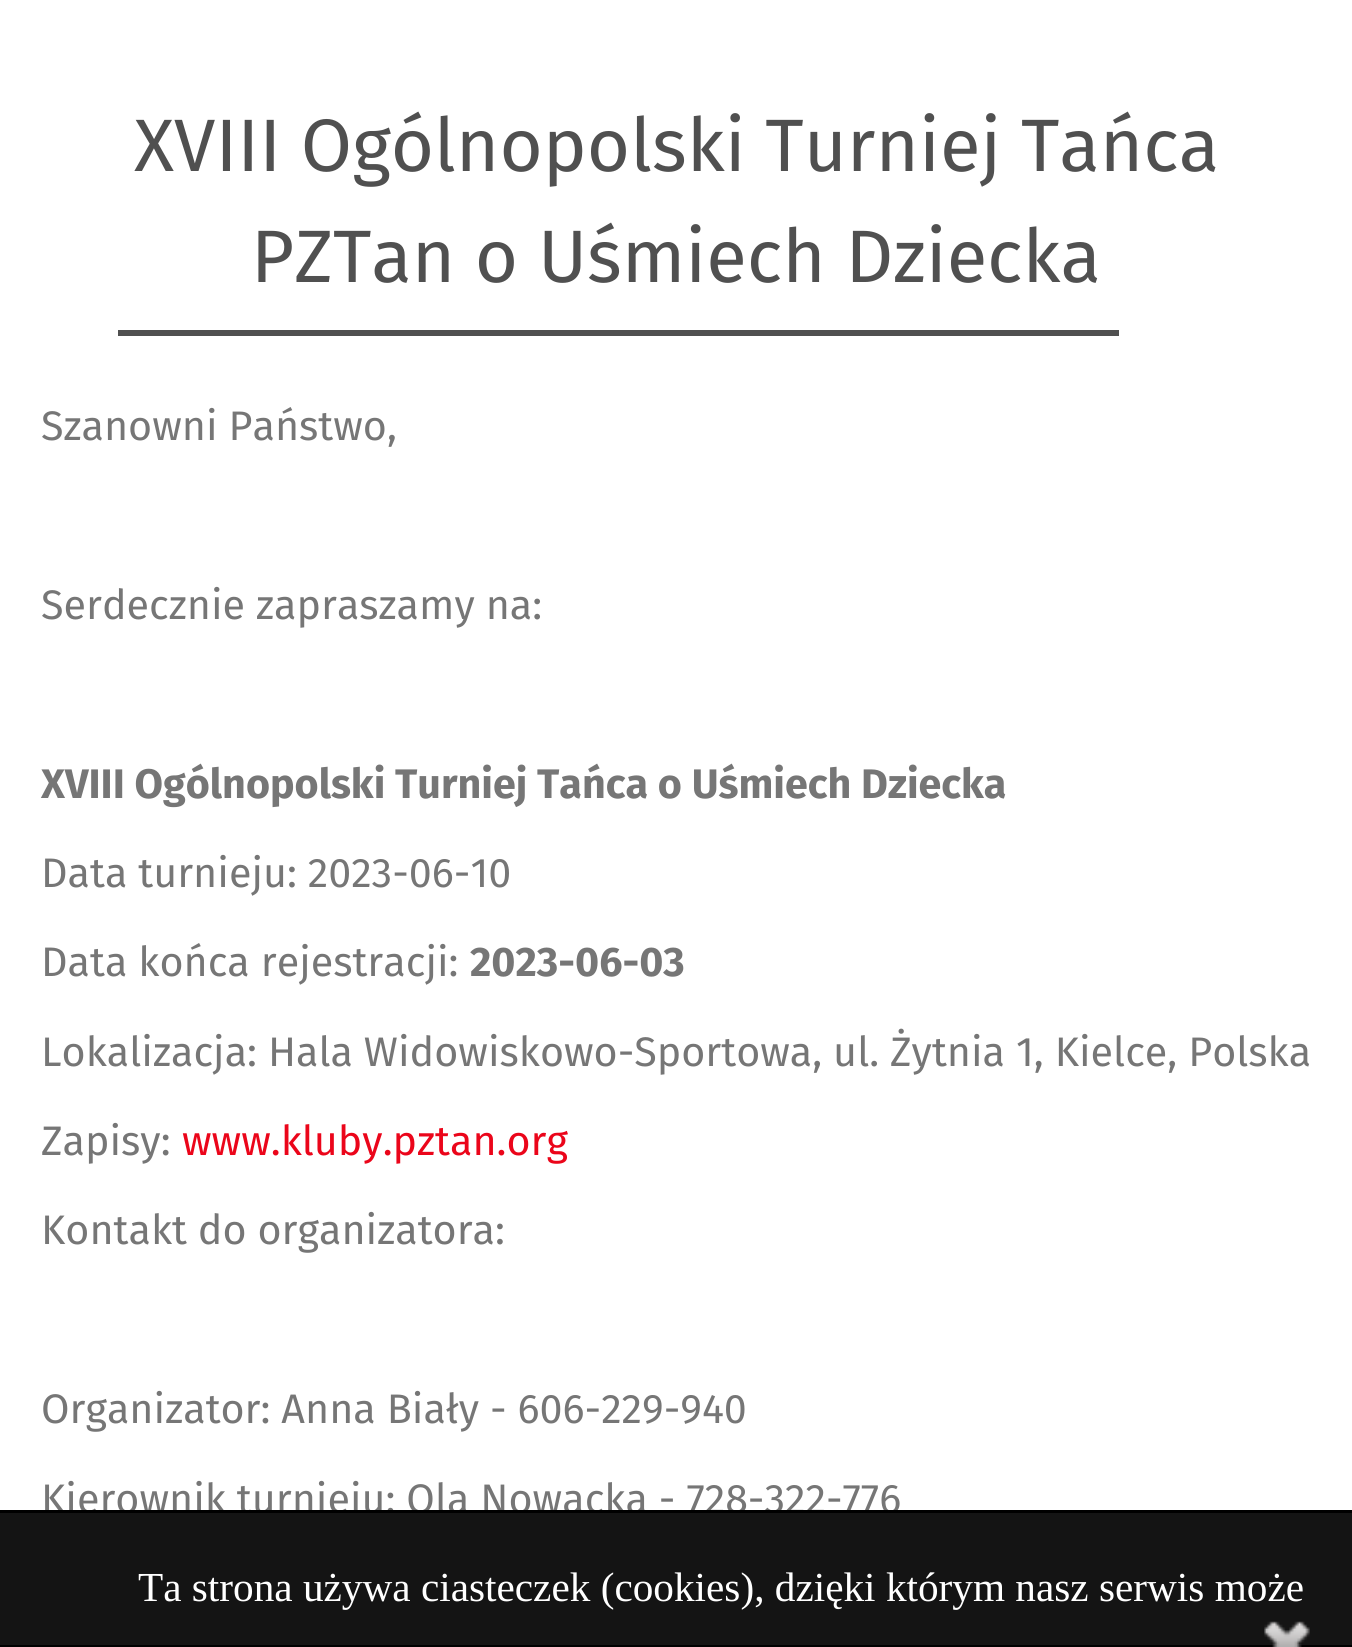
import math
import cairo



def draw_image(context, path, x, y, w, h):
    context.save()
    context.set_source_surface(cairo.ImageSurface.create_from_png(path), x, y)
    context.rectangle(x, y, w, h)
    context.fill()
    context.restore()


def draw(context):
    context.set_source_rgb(1, 1, 1)
    context.paint()
    context.set_source_rgb(80 / 255, 80 / 255, 80 / 255)
    context.rectangle(118, 330, 1001, 6)
    context.fill()
    context.set_source_rgb(0, 0, 0)
    context.rectangle(0, 1645, 1352, 2)
    context.fill()
    context.select_font_face("Fira Sans")
    context.set_font_size(74.25)
    context.set_source_rgb(80 / 255, 80 / 255, 80 / 255)
    context.move_to(134, 171)
    context.show_text("XVIII Ogólnopolski Turniej Tańca")
    context.move_to(251, 282)
    context.show_text("PZTan o Uśmiech Dziecka")
    context.set_font_size(41.25)
    context.set_source_rgb(118 / 255, 118 / 255, 118 / 255)
    context.move_to(41, 440)
    context.show_text("Szanowni Państwo,")
    context.move_to(41, 619)
    context.show_text("Serdecznie zapraszamy na:")
    context.select_font_face("Fira Sans", cairo.FontSlant.NORMAL, cairo.FontWeight.BOLD)
    context.move_to(41, 798)
    context.show_text("XVIII Ogólnopolski Turniej Tańca o Uśmiech Dziecka")
    context.select_font_face("Fira Sans")
    context.move_to(41, 887)
    context.show_text("Data turnieju: 2023-06-10")
    context.move_to(41, 976)
    context.show_text("Data końca rejestracji:")
    context.select_font_face("Fira Sans", cairo.FontSlant.NORMAL, cairo.FontWeight.BOLD)
    context.move_to(470, 976)
    context.show_text("2023-06-03")
    context.select_font_face("Fira Sans")
    context.move_to(41, 1066)
    context.show_text("Lokalizacja: Hala Widowiskowo-Sportowa, ul. Żytnia 1, Kielce, Polska")
    context.move_to(41, 1155)
    context.show_text("Zapisy:")
    context.set_source_rgb(235 / 255, 5 / 255, 26 / 255)
    context.move_to(182, 1155)
    context.show_text("www.kluby.pztan.org")
    context.set_source_rgb(118 / 255, 118 / 255, 118 / 255)
    context.move_to(41, 1244)
    context.show_text("Kontakt do organizatora:")
    context.move_to(41, 1423)
    context.show_text("Organizator: Anna Biały - 606-229-940")
    context.move_to(41, 1513)
    context.show_text("Kierownik turnieju: Ola Nowacka - 728-322-776")
    context.set_source_rgb(20 / 255, 20 / 255, 20 / 255)
    context.rectangle(0, 1513, 1352, 132)
    context.fill()
    context.set_source_rgb(0, 0, 0)
    context.rectangle(0, 1510, 1352, 3)
    context.fill()
    context.select_font_face("Liberation Serif")
    context.set_source_rgb(1, 1, 1)
    context.move_to(138, 1601)
    context.show_text("Ta strona używa ciasteczek (cookies), dzięki którym nasz serwis może")
    draw_image(context, "images/1.png", 1264, 1621, 46, 26)


surface = cairo.ImageSurface(cairo.Format.RGB24, 1352, 1647)
context = cairo.Context(surface)
options = cairo.FontOptions()
options.set_hint_metrics(cairo.HintMetrics.OFF)
options.set_hint_style(cairo.HintStyle.NONE)
context.set_font_options(options)
context.set_miter_limit(4)
draw(context)
surface.write_to_png("out.png")
